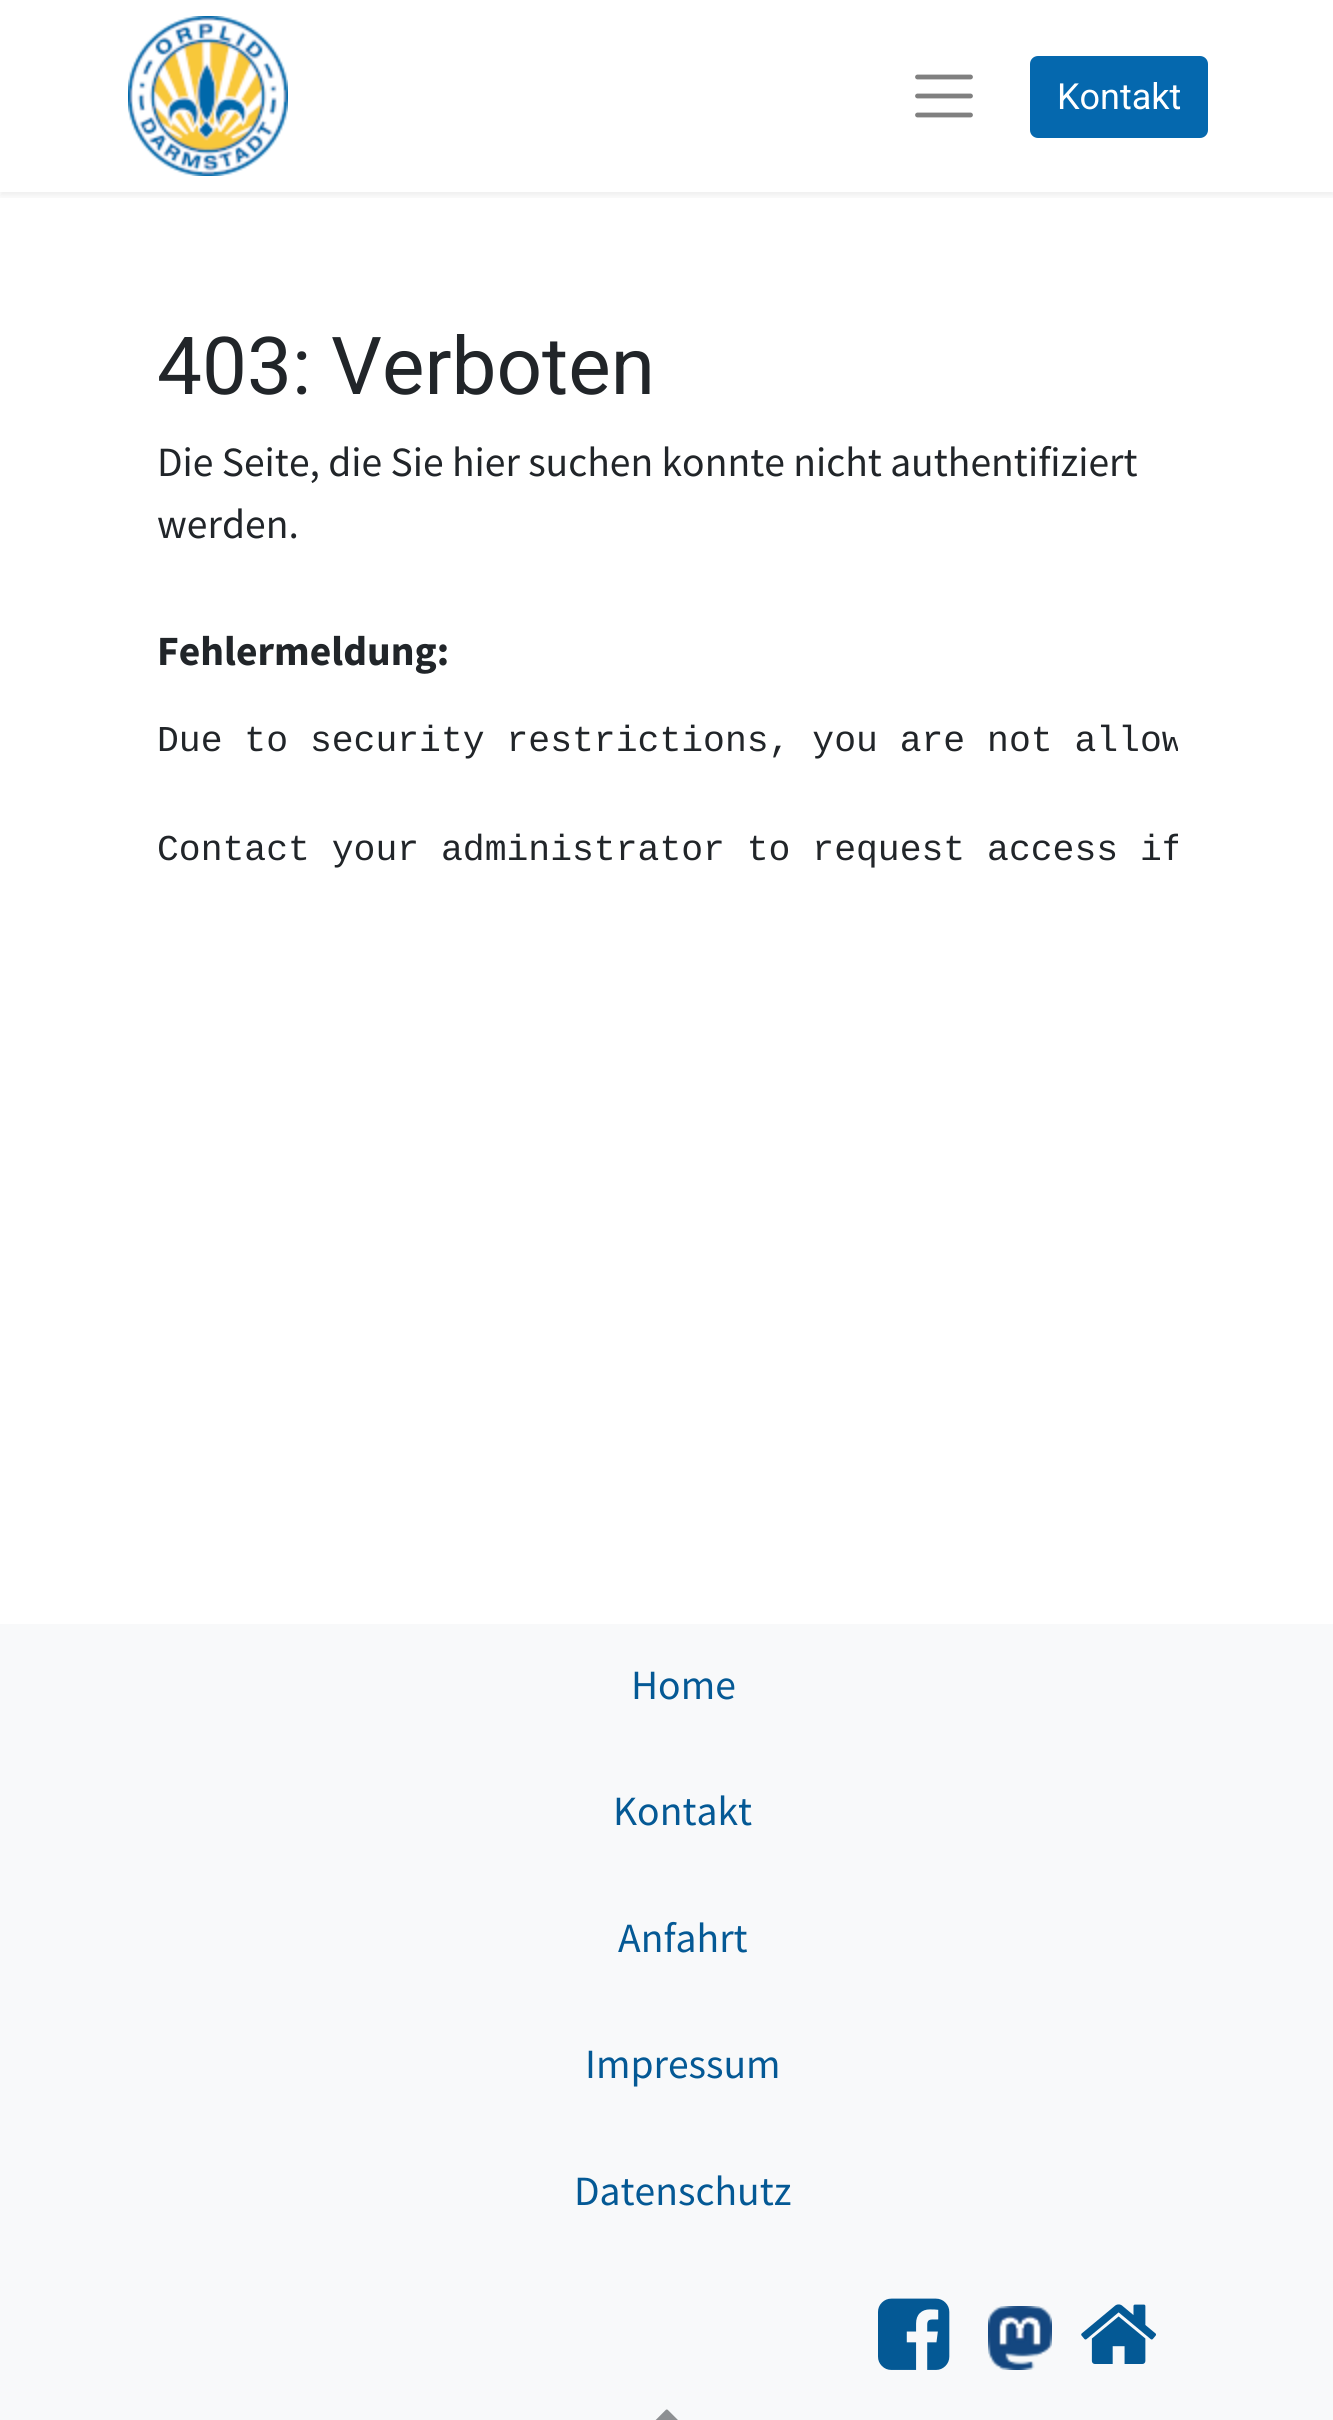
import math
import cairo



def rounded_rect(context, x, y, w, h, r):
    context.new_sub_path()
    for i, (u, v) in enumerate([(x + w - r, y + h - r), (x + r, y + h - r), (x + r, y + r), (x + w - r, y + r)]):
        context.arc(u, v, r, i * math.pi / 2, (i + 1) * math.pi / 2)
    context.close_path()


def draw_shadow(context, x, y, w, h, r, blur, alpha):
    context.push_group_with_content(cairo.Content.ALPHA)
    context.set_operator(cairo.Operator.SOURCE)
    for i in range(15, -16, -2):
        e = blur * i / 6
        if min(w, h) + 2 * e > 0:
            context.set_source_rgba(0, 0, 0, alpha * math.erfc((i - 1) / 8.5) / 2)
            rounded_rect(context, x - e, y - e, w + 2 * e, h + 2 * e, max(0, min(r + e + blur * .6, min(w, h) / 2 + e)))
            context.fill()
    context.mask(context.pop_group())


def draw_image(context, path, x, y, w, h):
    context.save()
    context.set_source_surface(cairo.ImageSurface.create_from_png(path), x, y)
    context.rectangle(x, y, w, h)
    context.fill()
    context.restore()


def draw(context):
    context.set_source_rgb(1, 1, 1)
    context.paint()
    context.save()
    context.rectangle(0, 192, 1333, 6)
    context.clip()
    context.set_source_rgb(0, 0, 0)
    draw_shadow(context, 0, 4, 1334, 192, 0, 4, 0.07)
    context.restore()
    draw_image(context, "images/1.png", 128, 16, 160, 160)
    context.new_path()
    context.move_to(917.5, 77)
    context.line_to(970.5, 77)
    context.move_to(917.5, 96)
    context.line_to(970.5, 96)
    context.move_to(917.5, 115)
    context.line_to(970.5, 115)
    context.set_source_rgb(128 / 255, 128 / 255, 128 / 255)
    context.set_line_width(4.8)
    context.set_line_cap(cairo.LineCap.ROUND)
    context.stroke()
    context.set_source_rgb(5 / 255, 104 / 255, 174 / 255)
    rounded_rect(context, 1031, 57, 176, 80, 7)
    context.fill_preserve()
    context.set_line_width(2)
    context.set_line_cap(cairo.LineCap.BUTT)
    context.stroke()
    context.set_source_rgb(248 / 255, 249 / 255, 250 / 255)
    context.rectangle(0, 1624, 1333, 796)
    context.fill()
    draw_image(context, "images/2.png", 878, 2298, 72, 72)
    draw_image(context, "images/3.png", 988, 2306, 64, 64)
    draw_image(context, "images/4.png", 1081, 2304, 75, 60)
    draw_image(context, "images/5.png", 655, 2409, 23, 11)
    context.select_font_face("Roboto")
    context.set_font_size(36)
    context.set_source_rgb(1, 1, 1)
    context.move_to(1057, 109)
    context.show_text("Kontakt")
    context.set_font_size(80)
    context.set_source_rgb(33 / 255, 37 / 255, 41 / 255)
    context.move_to(157, 394)
    context.show_text("403: Verboten")
    context.select_font_face("Source Sans Pro")
    context.set_font_size(41.6)
    context.move_to(157, 476)
    context.show_text("Die Seite, die Sie hier suchen konnte nicht authentifiziert")
    context.move_to(157, 538)
    context.show_text("werden.")
    context.select_font_face("Source Sans Pro", cairo.FontSlant.NORMAL, cairo.FontWeight.BOLD)
    context.move_to(157, 665)
    context.show_text("Fehlermeldung:")
    context.save()
    context.rectangle(158, 716, 1020, 162)
    context.clip()
    context.select_font_face("Liberation Mono")
    context.set_font_size(36.4)
    context.move_to(157, 751)
    context.show_text("Due to security restrictions, you are not allow")
    context.move_to(157, 860)
    context.show_text("Contact your administrator to request access if")
    context.restore()
    context.select_font_face("Source Sans Pro")
    context.set_source_rgb(4 / 255, 89 / 255, 149 / 255)
    context.move_to(631, 1699)
    context.show_text("Home")
    context.move_to(613, 1825)
    context.show_text("Kontakt")
    context.move_to(618, 1952)
    context.show_text("Anfahrt")
    context.move_to(585, 2078)
    context.show_text("Impressum")
    context.move_to(574, 2205)
    context.show_text("Datenschutz")


surface = cairo.ImageSurface(cairo.Format.RGB24, 1333, 2420)
context = cairo.Context(surface)
options = cairo.FontOptions()
options.set_hint_metrics(cairo.HintMetrics.OFF)
options.set_hint_style(cairo.HintStyle.NONE)
context.set_font_options(options)
context.set_miter_limit(4)
draw(context)
surface.write_to_png("out.png")
